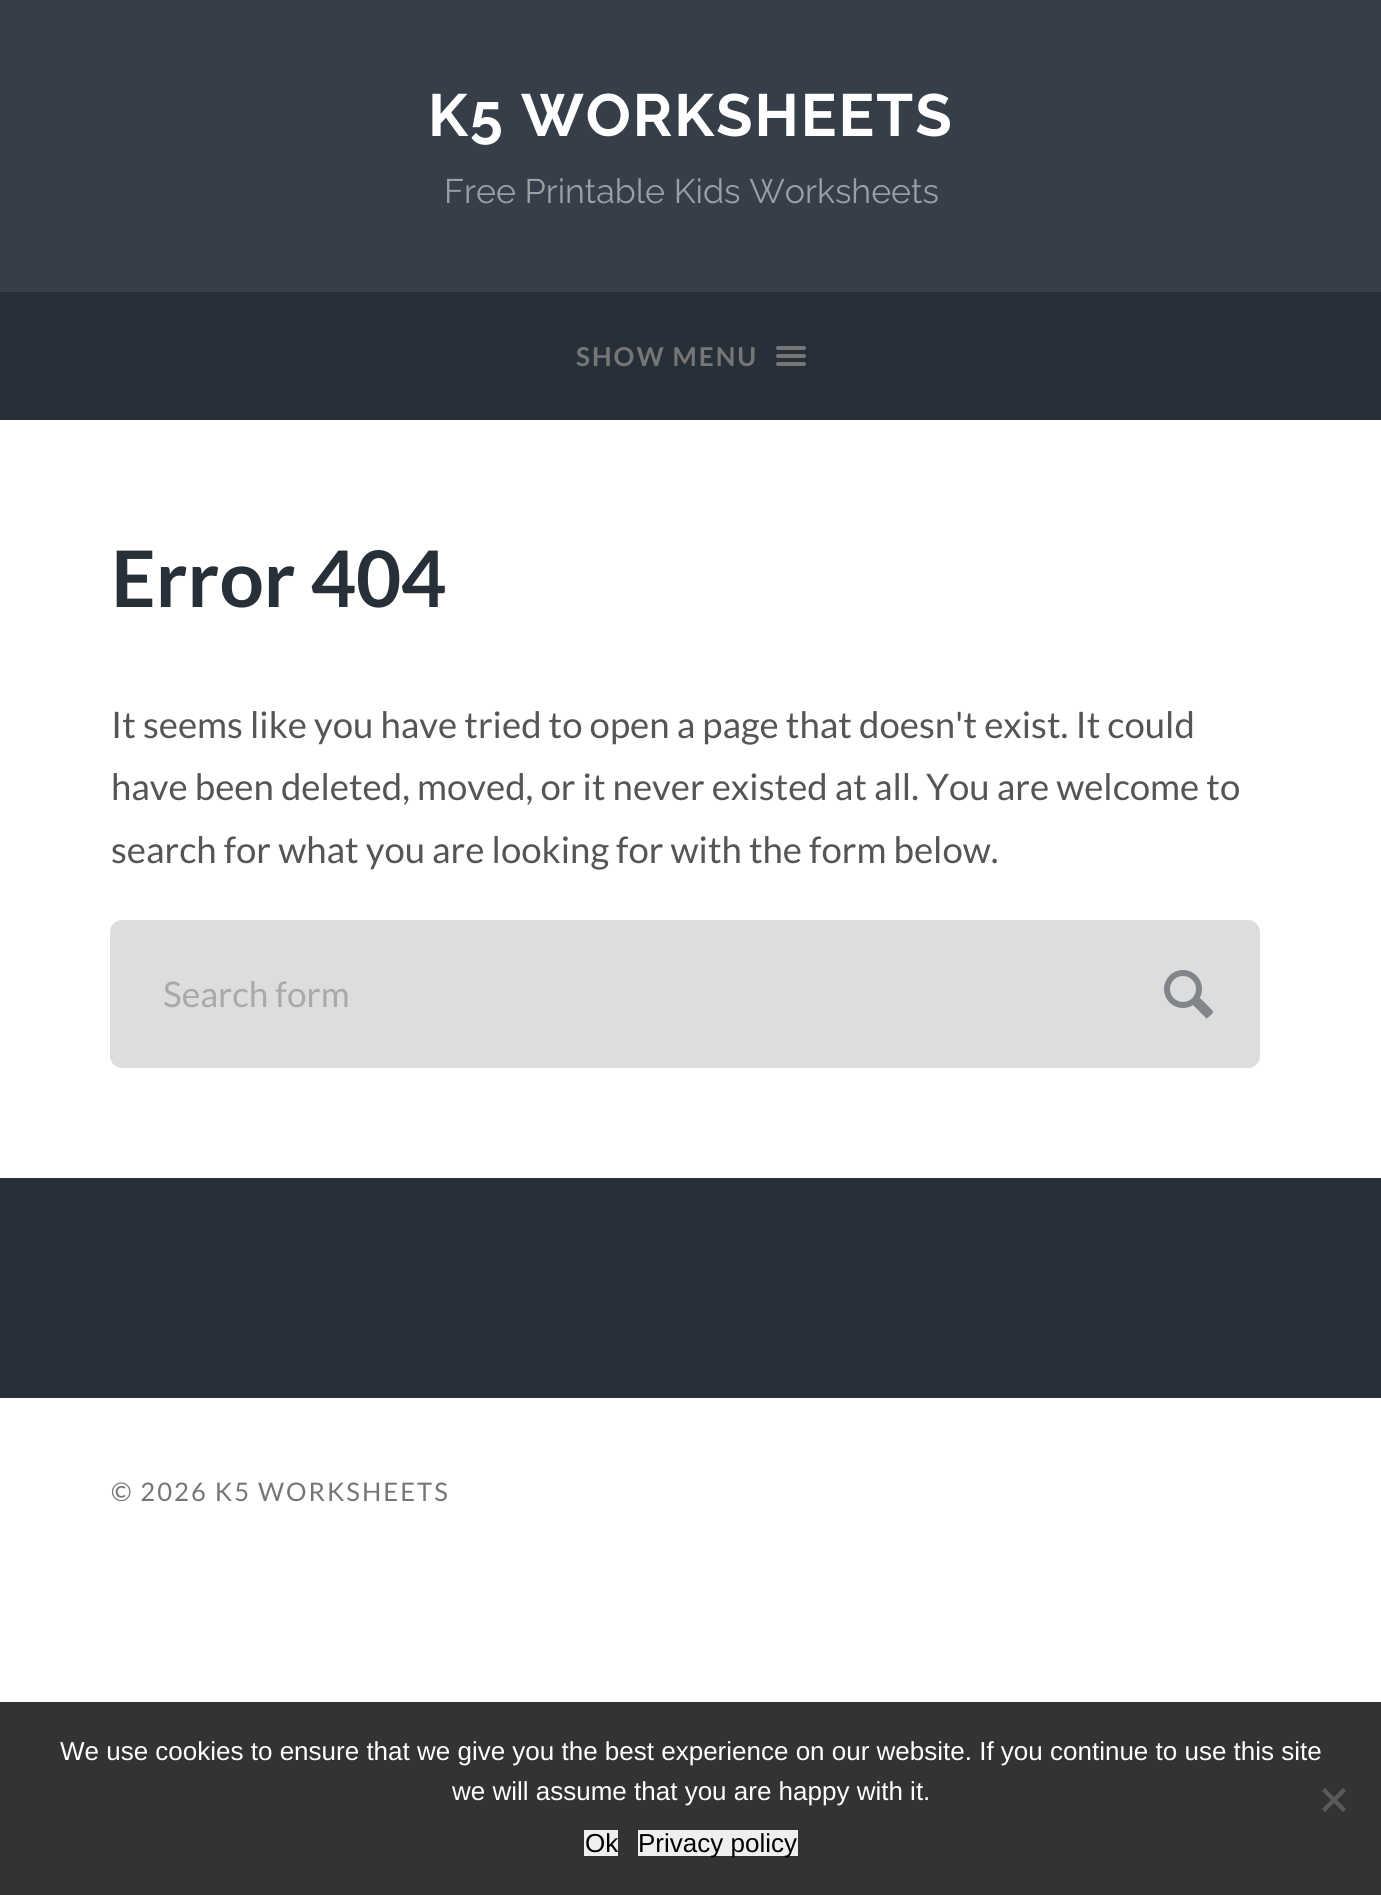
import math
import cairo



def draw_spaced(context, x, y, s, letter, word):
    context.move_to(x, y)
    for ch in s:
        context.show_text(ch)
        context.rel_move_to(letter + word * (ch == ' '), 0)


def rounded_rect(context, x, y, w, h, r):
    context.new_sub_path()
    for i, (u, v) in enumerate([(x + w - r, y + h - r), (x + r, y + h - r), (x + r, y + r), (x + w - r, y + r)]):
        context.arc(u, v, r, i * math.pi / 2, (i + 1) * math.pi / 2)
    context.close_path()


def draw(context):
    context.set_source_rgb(1, 1, 1)
    context.paint()
    context.set_source_rgb(53 / 255, 62 / 255, 73 / 255)
    context.rectangle(0, 0, 1381, 292)
    context.fill()
    context.set_source_rgb(39 / 255, 47 / 255, 56 / 255)
    context.rectangle(0, 292, 1381, 128)
    context.fill()
    context.set_source_rgb(118 / 255, 118 / 255, 118 / 255)
    rounded_rect(context, 776, 346, 30, 4, 2)
    context.fill()
    rounded_rect(context, 776, 354, 30, 4, 2)
    context.fill()
    rounded_rect(context, 776, 362, 30, 4, 2)
    context.fill()
    context.set_source_rgb(221 / 255, 221 / 255, 221 / 255)
    rounded_rect(context, 110, 920, 1150, 148, 12)
    context.fill()
    context.set_source_rgb(130 / 255, 134 / 255, 139 / 255)
    context.arc(1183, 989, 19, 0, 2 * math.pi)
    context.fill()
    context.new_path()
    context.move_to(1197, 995)
    context.line_to(1212.5, 1010.5)
    context.curve_to(1213, 1011.5, 1213, 1012.5, 1212.5, 1013.5)
    context.line_to(1208, 1017.5)
    context.curve_to(1207.5, 1018.5, 1206, 1018.5, 1205.5, 1017.5)
    context.line_to(1190, 1002)
    context.close_path()
    context.fill()
    context.set_source_rgb(221 / 255, 221 / 255, 221 / 255)
    context.arc(1183, 989, 13, 0, 2 * math.pi)
    context.fill()
    context.set_source_rgb(39 / 255, 47 / 255, 56 / 255)
    context.rectangle(0, 1178, 1381, 220)
    context.fill()
    context.set_source_rgb(51 / 255, 51 / 255, 51 / 255)
    context.rectangle(0, 1702, 1381, 193)
    context.fill()
    context.set_source_rgb(90 / 255, 90 / 255, 90 / 255)
    context.new_path()
    context.move_to(1343, 1788)
    context.line_to(1346, 1791)
    context.line_to(1325, 1812)
    context.line_to(1322, 1809)
    context.close_path()
    context.fill()
    context.new_path()
    context.move_to(1322, 1791)
    context.line_to(1325, 1788)
    context.line_to(1346, 1809)
    context.line_to(1343, 1812)
    context.close_path()
    context.fill()
    context.set_source_rgb(239 / 255, 239 / 255, 239 / 255)
    context.rectangle(584, 1830, 34, 26)
    context.fill()
    context.rectangle(638, 1830, 160, 26)
    context.fill()
    context.select_font_face("Raleway", cairo.FontSlant.NORMAL, cairo.FontWeight.BOLD)
    context.set_font_size(59.5)
    context.set_source_rgb(1, 1, 1)
    draw_spaced(context, 428, 136, "K5 WORKSHEETS", 2, 0)
    context.select_font_face("Raleway")
    context.set_font_size(34)
    context.set_source_rgb(154 / 255, 159 / 255, 164 / 255)
    context.move_to(444, 203)
    context.show_text("Free Printable Kids Worksheets")
    context.select_font_face("Lato", cairo.FontSlant.NORMAL, cairo.FontWeight.BOLD)
    context.set_font_size(26)
    context.set_source_rgb(118 / 255, 118 / 255, 118 / 255)
    draw_spaced(context, 576, 366, "SHOW MENU", 2, 0)
    context.set_font_size(78)
    context.set_source_rgb(39 / 255, 47 / 255, 56 / 255)
    context.move_to(111, 607)
    context.show_text("Error 404")
    context.select_font_face("Lato")
    context.set_font_size(36.55)
    context.set_source_rgb(85 / 255, 85 / 255, 85 / 255)
    context.move_to(111, 738)
    context.show_text("It seems like you have tried to open a page that doesn't exist. It could")
    context.move_to(111, 800)
    context.show_text("have been deleted, moved, or it never existed at all. You are welcome to")
    context.move_to(111, 863)
    context.show_text("search for what you are looking for with the form below.")
    context.set_font_size(35.25)
    context.set_source_rgb(169 / 255, 169 / 255, 169 / 255)
    context.move_to(163, 1007)
    context.show_text("Search form")
    context.set_font_size(25.6)
    context.set_source_rgb(118 / 255, 118 / 255, 118 / 255)
    draw_spaced(context, 111, 1501, "© 2026 K5 WORKSHEETS", 2, 0)
    context.select_font_face("Liberation Sans")
    context.set_font_size(26)
    context.set_source_rgb(1, 1, 1)
    context.move_to(60, 1760)
    context.show_text("We use cookies to ensure that we give you the best experience on our website. If you continue to use this site")
    context.move_to(452, 1800)
    context.show_text("we will assume that you are happy with it.")
    context.set_source_rgb(0, 0, 0)
    context.move_to(585, 1852)
    context.show_text("Ok")
    context.move_to(638, 1852)
    context.show_text("Privacy policy")


surface = cairo.ImageSurface(cairo.Format.RGB24, 1381, 1895)
context = cairo.Context(surface)
options = cairo.FontOptions()
options.set_hint_metrics(cairo.HintMetrics.OFF)
options.set_hint_style(cairo.HintStyle.NONE)
context.set_font_options(options)
context.set_miter_limit(4)
draw(context)
surface.write_to_png("out.png")
